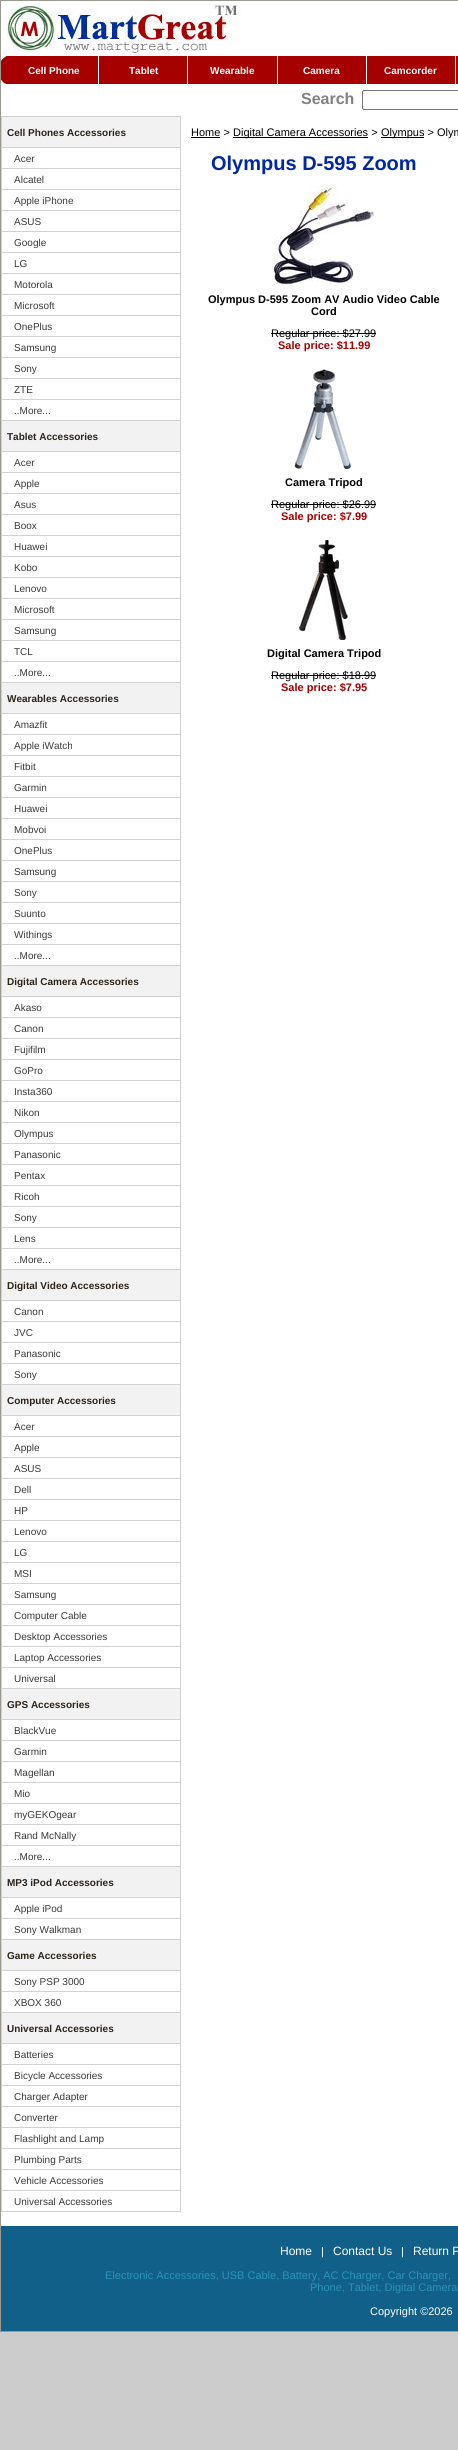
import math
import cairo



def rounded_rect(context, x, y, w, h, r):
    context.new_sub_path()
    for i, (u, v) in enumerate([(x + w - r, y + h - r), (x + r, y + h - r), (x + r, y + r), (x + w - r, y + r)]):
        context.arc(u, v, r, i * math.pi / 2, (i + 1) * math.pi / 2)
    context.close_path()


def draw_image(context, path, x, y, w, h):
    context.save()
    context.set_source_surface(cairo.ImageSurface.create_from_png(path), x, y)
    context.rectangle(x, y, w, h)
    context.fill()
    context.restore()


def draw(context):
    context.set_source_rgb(204 / 255, 204 / 255, 204 / 255)
    context.paint()
    context.set_source_rgb(1, 1, 1)
    context.rectangle(1, 1, 457, 2225)
    context.fill()
    context.rectangle(0.5, 0.5, 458, 2331)
    context.set_source_rgb(154 / 255, 153 / 255, 144 / 255)
    context.set_line_width(1)
    context.stroke()
    draw_image(context, "images/1.png", 1, 1, 240, 55)
    draw_image(context, "images/2.png", 1, 56, 9, 28)
    context.set_source_rgb(166 / 255, 0, 0)
    context.rectangle(10, 56, 88, 28)
    context.fill()
    context.rectangle(99, 56, 88, 28)
    context.fill()
    context.rectangle(188, 56, 89, 28)
    context.fill()
    context.rectangle(278, 56, 88, 28)
    context.fill()
    context.rectangle(367, 56, 88, 28)
    context.fill()
    context.rectangle(456, 56, 2, 28)
    context.fill()
    rounded_rect(context, 362.5, 90.5, 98, 19, 1.5)
    context.set_source_rgb(118 / 255, 118 / 255, 118 / 255)
    context.stroke()
    context.set_source_rgb(210 / 255, 210 / 255, 210 / 255)
    context.rectangle(1, 116, 180, 2096)
    context.fill()
    context.set_source_rgb(242 / 255, 242 / 255, 242 / 255)
    context.rectangle(2, 117, 178, 30)
    context.fill()
    context.set_source_rgb(1, 1, 1)
    context.rectangle(2, 148, 178, 20)
    context.fill()
    context.rectangle(2, 169, 178, 20)
    context.fill()
    context.rectangle(2, 190, 178, 20)
    context.fill()
    context.rectangle(2, 211, 178, 20)
    context.fill()
    context.rectangle(2, 232, 178, 20)
    context.fill()
    context.rectangle(2, 253, 178, 20)
    context.fill()
    context.rectangle(2, 274, 178, 20)
    context.fill()
    context.rectangle(2, 295, 178, 20)
    context.fill()
    context.rectangle(2, 316, 178, 20)
    context.fill()
    context.rectangle(2, 337, 178, 20)
    context.fill()
    context.rectangle(2, 358, 178, 20)
    context.fill()
    context.rectangle(2, 379, 178, 20)
    context.fill()
    context.rectangle(2, 400, 178, 20)
    context.fill()
    context.set_source_rgb(242 / 255, 242 / 255, 242 / 255)
    context.rectangle(2, 421, 178, 30)
    context.fill()
    context.set_source_rgb(1, 1, 1)
    context.rectangle(2, 452, 178, 20)
    context.fill()
    context.rectangle(2, 473, 178, 20)
    context.fill()
    context.rectangle(2, 494, 178, 20)
    context.fill()
    context.rectangle(2, 515, 178, 20)
    context.fill()
    context.rectangle(2, 536, 178, 20)
    context.fill()
    context.rectangle(2, 557, 178, 20)
    context.fill()
    context.rectangle(2, 578, 178, 20)
    context.fill()
    context.rectangle(2, 599, 178, 20)
    context.fill()
    context.rectangle(2, 620, 178, 20)
    context.fill()
    context.rectangle(2, 641, 178, 20)
    context.fill()
    context.rectangle(2, 662, 178, 20)
    context.fill()
    context.set_source_rgb(242 / 255, 242 / 255, 242 / 255)
    context.rectangle(2, 683, 178, 30)
    context.fill()
    context.set_source_rgb(1, 1, 1)
    context.rectangle(2, 714, 178, 20)
    context.fill()
    context.rectangle(2, 735, 178, 20)
    context.fill()
    context.rectangle(2, 756, 178, 20)
    context.fill()
    context.rectangle(2, 777, 178, 20)
    context.fill()
    context.rectangle(2, 798, 178, 20)
    context.fill()
    context.rectangle(2, 819, 178, 20)
    context.fill()
    context.rectangle(2, 840, 178, 20)
    context.fill()
    context.rectangle(2, 861, 178, 20)
    context.fill()
    context.rectangle(2, 882, 178, 20)
    context.fill()
    context.rectangle(2, 903, 178, 20)
    context.fill()
    context.rectangle(2, 924, 178, 20)
    context.fill()
    context.rectangle(2, 945, 178, 20)
    context.fill()
    context.set_source_rgb(242 / 255, 242 / 255, 242 / 255)
    context.rectangle(2, 966, 178, 30)
    context.fill()
    context.set_source_rgb(1, 1, 1)
    context.rectangle(2, 997, 178, 20)
    context.fill()
    context.rectangle(2, 1018, 178, 20)
    context.fill()
    context.rectangle(2, 1039, 178, 20)
    context.fill()
    context.rectangle(2, 1060, 178, 20)
    context.fill()
    context.rectangle(2, 1081, 178, 20)
    context.fill()
    context.rectangle(2, 1102, 178, 20)
    context.fill()
    context.rectangle(2, 1123, 178, 20)
    context.fill()
    context.rectangle(2, 1144, 178, 20)
    context.fill()
    context.rectangle(2, 1165, 178, 20)
    context.fill()
    context.rectangle(2, 1186, 178, 20)
    context.fill()
    context.rectangle(2, 1207, 178, 20)
    context.fill()
    context.rectangle(2, 1228, 178, 20)
    context.fill()
    context.rectangle(2, 1249, 178, 20)
    context.fill()
    context.set_source_rgb(242 / 255, 242 / 255, 242 / 255)
    context.rectangle(2, 1270, 178, 30)
    context.fill()
    context.set_source_rgb(1, 1, 1)
    context.rectangle(2, 1301, 178, 20)
    context.fill()
    context.rectangle(2, 1322, 178, 20)
    context.fill()
    context.rectangle(2, 1343, 178, 20)
    context.fill()
    context.rectangle(2, 1364, 178, 20)
    context.fill()
    context.set_source_rgb(242 / 255, 242 / 255, 242 / 255)
    context.rectangle(2, 1385, 178, 30)
    context.fill()
    context.set_source_rgb(1, 1, 1)
    context.rectangle(2, 1416, 178, 20)
    context.fill()
    context.rectangle(2, 1437, 178, 20)
    context.fill()
    context.rectangle(2, 1458, 178, 20)
    context.fill()
    context.rectangle(2, 1479, 178, 20)
    context.fill()
    context.rectangle(2, 1500, 178, 20)
    context.fill()
    context.rectangle(2, 1521, 178, 20)
    context.fill()
    context.rectangle(2, 1542, 178, 20)
    context.fill()
    context.rectangle(2, 1563, 178, 20)
    context.fill()
    context.rectangle(2, 1584, 178, 20)
    context.fill()
    context.rectangle(2, 1605, 178, 20)
    context.fill()
    context.rectangle(2, 1626, 178, 20)
    context.fill()
    context.rectangle(2, 1647, 178, 20)
    context.fill()
    context.rectangle(2, 1668, 178, 20)
    context.fill()
    context.set_source_rgb(242 / 255, 242 / 255, 242 / 255)
    context.rectangle(2, 1689, 178, 30)
    context.fill()
    context.set_source_rgb(1, 1, 1)
    context.rectangle(2, 1720, 178, 20)
    context.fill()
    context.rectangle(2, 1741, 178, 20)
    context.fill()
    context.rectangle(2, 1762, 178, 20)
    context.fill()
    context.rectangle(2, 1783, 178, 20)
    context.fill()
    context.rectangle(2, 1804, 178, 20)
    context.fill()
    context.rectangle(2, 1825, 178, 20)
    context.fill()
    context.rectangle(2, 1846, 178, 20)
    context.fill()
    context.set_source_rgb(242 / 255, 242 / 255, 242 / 255)
    context.rectangle(2, 1867, 178, 30)
    context.fill()
    context.set_source_rgb(1, 1, 1)
    context.rectangle(2, 1898, 178, 20)
    context.fill()
    context.rectangle(2, 1919, 178, 20)
    context.fill()
    context.set_source_rgb(242 / 255, 242 / 255, 242 / 255)
    context.rectangle(2, 1940, 178, 30)
    context.fill()
    context.set_source_rgb(1, 1, 1)
    context.rectangle(2, 1971, 178, 20)
    context.fill()
    context.rectangle(2, 1992, 178, 20)
    context.fill()
    context.set_source_rgb(242 / 255, 242 / 255, 242 / 255)
    context.rectangle(2, 2013, 178, 30)
    context.fill()
    context.set_source_rgb(1, 1, 1)
    context.rectangle(2, 2044, 178, 20)
    context.fill()
    context.rectangle(2, 2065, 178, 20)
    context.fill()
    context.rectangle(2, 2086, 178, 20)
    context.fill()
    context.rectangle(2, 2107, 178, 20)
    context.fill()
    context.rectangle(2, 2128, 178, 20)
    context.fill()
    context.rectangle(2, 2149, 178, 20)
    context.fill()
    context.rectangle(2, 2170, 178, 20)
    context.fill()
    context.rectangle(2, 2191, 178, 20)
    context.fill()
    context.set_source_rgb(0, 0, 0)
    context.rectangle(191, 137, 29, 1)
    context.fill()
    context.rectangle(233, 137, 135, 1)
    context.fill()
    context.rectangle(381, 137, 43, 1)
    context.fill()
    draw_image(context, "images/3.png", 274, 186, 100, 100)
    context.rectangle(271, 333, 105, 1)
    context.fill()
    draw_image(context, "images/4.png", 294, 369, 57, 100)
    context.rectangle(271, 504, 105, 1)
    context.fill()
    draw_image(context, "images/5.png", 298, 540, 50, 100)
    context.rectangle(271, 675, 105, 1)
    context.fill()
    context.set_source_rgb(17 / 255, 96 / 255, 137 / 255)
    context.rectangle(1, 2226, 457, 105)
    context.fill()
    context.select_font_face("Liberation Sans", cairo.FontSlant.NORMAL, cairo.FontWeight.BOLD)
    context.set_font_size(10)
    context.set_source_rgb(1, 1, 1)
    context.move_to(28, 74)
    context.show_text("Cell Phone")
    context.move_to(129, 74)
    context.show_text("Tablet")
    context.move_to(210, 74)
    context.show_text("Wearable")
    context.move_to(303, 74)
    context.show_text("Camera")
    context.move_to(384, 74)
    context.show_text("Camcorder")
    context.set_font_size(16)
    context.set_source_rgb(130 / 255, 130 / 255, 130 / 255)
    context.move_to(301, 104)
    context.show_text("Search")
    context.set_font_size(10)
    context.set_source_rgb(45 / 255, 35 / 255, 26 / 255)
    context.move_to(7, 136)
    context.show_text("Cell Phones Accessories")
    context.select_font_face("Liberation Sans")
    context.set_source_rgb(58 / 255, 58 / 255, 58 / 255)
    context.move_to(14, 162)
    context.show_text("Acer")
    context.move_to(14, 183)
    context.show_text("Alcatel")
    context.move_to(14, 204)
    context.show_text("Apple iPhone")
    context.move_to(14, 225)
    context.show_text("ASUS")
    context.move_to(14, 246)
    context.show_text("Google")
    context.move_to(14, 267)
    context.show_text("LG")
    context.move_to(14, 288)
    context.show_text("Motorola")
    context.move_to(14, 309)
    context.show_text("Microsoft")
    context.move_to(14, 330)
    context.show_text("OnePlus")
    context.move_to(14, 351)
    context.show_text("Samsung")
    context.move_to(14, 372)
    context.show_text("Sony")
    context.move_to(14, 393)
    context.show_text("ZTE")
    context.move_to(14, 414)
    context.show_text("..More...")
    context.select_font_face("Liberation Sans", cairo.FontSlant.NORMAL, cairo.FontWeight.BOLD)
    context.set_source_rgb(45 / 255, 35 / 255, 26 / 255)
    context.move_to(7, 440)
    context.show_text("Tablet Accessories")
    context.select_font_face("Liberation Sans")
    context.set_source_rgb(58 / 255, 58 / 255, 58 / 255)
    context.move_to(14, 466)
    context.show_text("Acer")
    context.move_to(14, 487)
    context.show_text("Apple")
    context.move_to(14, 508)
    context.show_text("Asus")
    context.move_to(14, 529)
    context.show_text("Boox")
    context.move_to(14, 550)
    context.show_text("Huawei")
    context.move_to(14, 571)
    context.show_text("Kobo")
    context.move_to(14, 592)
    context.show_text("Lenovo")
    context.move_to(14, 613)
    context.show_text("Microsoft")
    context.move_to(14, 634)
    context.show_text("Samsung")
    context.move_to(14, 655)
    context.show_text("TCL")
    context.move_to(14, 676)
    context.show_text("..More...")
    context.select_font_face("Liberation Sans", cairo.FontSlant.NORMAL, cairo.FontWeight.BOLD)
    context.set_source_rgb(45 / 255, 35 / 255, 26 / 255)
    context.move_to(7, 702)
    context.show_text("Wearables Accessories")
    context.select_font_face("Liberation Sans")
    context.set_source_rgb(58 / 255, 58 / 255, 58 / 255)
    context.move_to(14, 728)
    context.show_text("Amazfit")
    context.move_to(14, 749)
    context.show_text("Apple iWatch")
    context.move_to(14, 770)
    context.show_text("Fitbit")
    context.move_to(14, 791)
    context.show_text("Garmin")
    context.move_to(14, 812)
    context.show_text("Huawei")
    context.move_to(14, 833)
    context.show_text("Mobvoi")
    context.move_to(14, 854)
    context.show_text("OnePlus")
    context.move_to(14, 875)
    context.show_text("Samsung")
    context.move_to(14, 896)
    context.show_text("Sony")
    context.move_to(14, 917)
    context.show_text("Suunto")
    context.move_to(14, 938)
    context.show_text("Withings")
    context.move_to(14, 959)
    context.show_text("..More...")
    context.select_font_face("Liberation Sans", cairo.FontSlant.NORMAL, cairo.FontWeight.BOLD)
    context.set_source_rgb(45 / 255, 35 / 255, 26 / 255)
    context.move_to(7, 985)
    context.show_text("Digital Camera Accessories")
    context.select_font_face("Liberation Sans")
    context.set_source_rgb(58 / 255, 58 / 255, 58 / 255)
    context.move_to(14, 1011)
    context.show_text("Akaso")
    context.move_to(14, 1032)
    context.show_text("Canon")
    context.move_to(14, 1053)
    context.show_text("Fujifilm")
    context.move_to(14, 1074)
    context.show_text("GoPro")
    context.move_to(14, 1095)
    context.show_text("Insta360")
    context.move_to(14, 1116)
    context.show_text("Nikon")
    context.move_to(14, 1137)
    context.show_text("Olympus")
    context.move_to(14, 1158)
    context.show_text("Panasonic")
    context.move_to(14, 1179)
    context.show_text("Pentax")
    context.move_to(14, 1200)
    context.show_text("Ricoh")
    context.move_to(14, 1221)
    context.show_text("Sony")
    context.move_to(14, 1242)
    context.show_text("Lens")
    context.move_to(14, 1263)
    context.show_text("..More...")
    context.select_font_face("Liberation Sans", cairo.FontSlant.NORMAL, cairo.FontWeight.BOLD)
    context.set_source_rgb(45 / 255, 35 / 255, 26 / 255)
    context.move_to(7, 1289)
    context.show_text("Digital Video Accessories")
    context.select_font_face("Liberation Sans")
    context.set_source_rgb(58 / 255, 58 / 255, 58 / 255)
    context.move_to(14, 1315)
    context.show_text("Canon")
    context.move_to(14, 1336)
    context.show_text("JVC")
    context.move_to(14, 1357)
    context.show_text("Panasonic")
    context.move_to(14, 1378)
    context.show_text("Sony")
    context.select_font_face("Liberation Sans", cairo.FontSlant.NORMAL, cairo.FontWeight.BOLD)
    context.set_source_rgb(45 / 255, 35 / 255, 26 / 255)
    context.move_to(7, 1404)
    context.show_text("Computer Accessories")
    context.select_font_face("Liberation Sans")
    context.set_source_rgb(58 / 255, 58 / 255, 58 / 255)
    context.move_to(14, 1430)
    context.show_text("Acer")
    context.move_to(14, 1451)
    context.show_text("Apple")
    context.move_to(14, 1472)
    context.show_text("ASUS")
    context.move_to(14, 1493)
    context.show_text("Dell")
    context.move_to(14, 1514)
    context.show_text("HP")
    context.move_to(14, 1535)
    context.show_text("Lenovo")
    context.move_to(14, 1556)
    context.show_text("LG")
    context.move_to(14, 1577)
    context.show_text("MSI")
    context.move_to(14, 1598)
    context.show_text("Samsung")
    context.move_to(14, 1619)
    context.show_text("Computer Cable")
    context.move_to(14, 1640)
    context.show_text("Desktop Accessories")
    context.move_to(14, 1661)
    context.show_text("Laptop Accessories")
    context.move_to(14, 1682)
    context.show_text("Universal")
    context.select_font_face("Liberation Sans", cairo.FontSlant.NORMAL, cairo.FontWeight.BOLD)
    context.set_source_rgb(45 / 255, 35 / 255, 26 / 255)
    context.move_to(7, 1708)
    context.show_text("GPS Accessories")
    context.select_font_face("Liberation Sans")
    context.set_source_rgb(58 / 255, 58 / 255, 58 / 255)
    context.move_to(14, 1734)
    context.show_text("BlackVue")
    context.move_to(14, 1755)
    context.show_text("Garmin")
    context.move_to(14, 1776)
    context.show_text("Magellan")
    context.move_to(14, 1797)
    context.show_text("Mio")
    context.move_to(14, 1818)
    context.show_text("myGEKOgear")
    context.move_to(14, 1839)
    context.show_text("Rand McNally")
    context.move_to(14, 1860)
    context.show_text("..More...")
    context.select_font_face("Liberation Sans", cairo.FontSlant.NORMAL, cairo.FontWeight.BOLD)
    context.set_source_rgb(45 / 255, 35 / 255, 26 / 255)
    context.move_to(7, 1886)
    context.show_text("MP3 iPod Accessories")
    context.select_font_face("Liberation Sans")
    context.set_source_rgb(58 / 255, 58 / 255, 58 / 255)
    context.move_to(14, 1912)
    context.show_text("Apple iPod")
    context.move_to(14, 1933)
    context.show_text("Sony Walkman")
    context.select_font_face("Liberation Sans", cairo.FontSlant.NORMAL, cairo.FontWeight.BOLD)
    context.set_source_rgb(45 / 255, 35 / 255, 26 / 255)
    context.move_to(7, 1959)
    context.show_text("Game Accessories")
    context.select_font_face("Liberation Sans")
    context.set_source_rgb(58 / 255, 58 / 255, 58 / 255)
    context.move_to(14, 1985)
    context.show_text("Sony PSP 3000")
    context.move_to(14, 2006)
    context.show_text("XBOX 360")
    context.select_font_face("Liberation Sans", cairo.FontSlant.NORMAL, cairo.FontWeight.BOLD)
    context.set_source_rgb(45 / 255, 35 / 255, 26 / 255)
    context.move_to(7, 2032)
    context.show_text("Universal Accessories")
    context.select_font_face("Liberation Sans")
    context.set_source_rgb(58 / 255, 58 / 255, 58 / 255)
    context.move_to(14, 2058)
    context.show_text("Batteries")
    context.move_to(14, 2079)
    context.show_text("Bicycle Accessories")
    context.move_to(14, 2100)
    context.show_text("Charger Adapter")
    context.move_to(14, 2121)
    context.show_text("Converter")
    context.move_to(14, 2142)
    context.show_text("Flashlight and Lamp")
    context.move_to(14, 2163)
    context.show_text("Plumbing Parts")
    context.move_to(14, 2184)
    context.show_text("Vehicle Accessories")
    context.move_to(14, 2205)
    context.show_text("Universal Accessories")
    context.set_font_size(11)
    context.set_source_rgb(0, 0, 0)
    context.move_to(191, 136)
    context.show_text("Home >")
    context.move_to(233, 136)
    context.show_text("Digital Camera Accessories >")
    context.move_to(381, 136)
    context.show_text("Olympus > Olym")
    context.select_font_face("Liberation Sans", cairo.FontSlant.NORMAL, cairo.FontWeight.BOLD)
    context.set_font_size(20)
    context.set_source_rgb(1 / 255, 40 / 255, 163 / 255)
    context.move_to(211, 170)
    context.show_text("Olympus D-595 Zoom")
    context.set_font_size(11)
    context.set_source_rgb(0, 0, 0)
    context.move_to(208, 303)
    context.show_text("Olympus D-595 Zoom AV Audio Video Cable")
    context.move_to(311, 315)
    context.show_text("Cord")
    context.select_font_face("Liberation Sans")
    context.move_to(271, 337)
    context.show_text("Regular price: $27.99")
    context.select_font_face("Liberation Sans", cairo.FontSlant.NORMAL, cairo.FontWeight.BOLD)
    context.set_source_rgb(166 / 255, 0, 0)
    context.move_to(278, 349)
    context.show_text("Sale price: $11.99")
    context.set_source_rgb(0, 0, 0)
    context.move_to(285, 486)
    context.show_text("Camera Tripod")
    context.select_font_face("Liberation Sans")
    context.move_to(271, 508)
    context.show_text("Regular price: $26.99")
    context.select_font_face("Liberation Sans", cairo.FontSlant.NORMAL, cairo.FontWeight.BOLD)
    context.set_source_rgb(166 / 255, 0, 0)
    context.move_to(281, 520)
    context.show_text("Sale price: $7.99")
    context.set_source_rgb(0, 0, 0)
    context.move_to(267, 657)
    context.show_text("Digital Camera Tripod")
    context.select_font_face("Liberation Sans")
    context.move_to(271, 679)
    context.show_text("Regular price: $18.99")
    context.select_font_face("Liberation Sans", cairo.FontSlant.NORMAL, cairo.FontWeight.BOLD)
    context.set_source_rgb(166 / 255, 0, 0)
    context.move_to(281, 691)
    context.show_text("Sale price: $7.95")
    context.select_font_face("Liberation Sans")
    context.set_font_size(12)
    context.set_source_rgb(1, 1, 1)
    context.move_to(280, 2255)
    context.show_text("Home")
    context.set_font_size(11)
    context.move_to(321, 2255)
    context.show_text("|")
    context.set_font_size(12)
    context.move_to(333, 2255)
    context.show_text("Contact Us")
    context.set_font_size(11)
    context.move_to(401, 2255)
    context.show_text("|")
    context.set_font_size(12)
    context.move_to(413, 2255)
    context.show_text("Return P")
    context.set_font_size(11)
    context.set_source_rgb(42 / 255, 147 / 255, 182 / 255)
    context.move_to(105, 2279)
    context.show_text("Electronic Accessories, USB Cable, Battery, AC Charger, Car Charger,")
    context.move_to(310, 2291)
    context.show_text("Phone, Tablet, Digital Camera")
    context.set_source_rgb(1, 1, 1)
    context.move_to(370, 2315)
    context.show_text("Copyright ©2026")


surface = cairo.ImageSurface(cairo.Format.RGB24, 458, 2450)
context = cairo.Context(surface)
options = cairo.FontOptions()
options.set_hint_metrics(cairo.HintMetrics.OFF)
options.set_hint_style(cairo.HintStyle.NONE)
context.set_font_options(options)
context.set_miter_limit(4)
draw(context)
surface.write_to_png("out.png")
